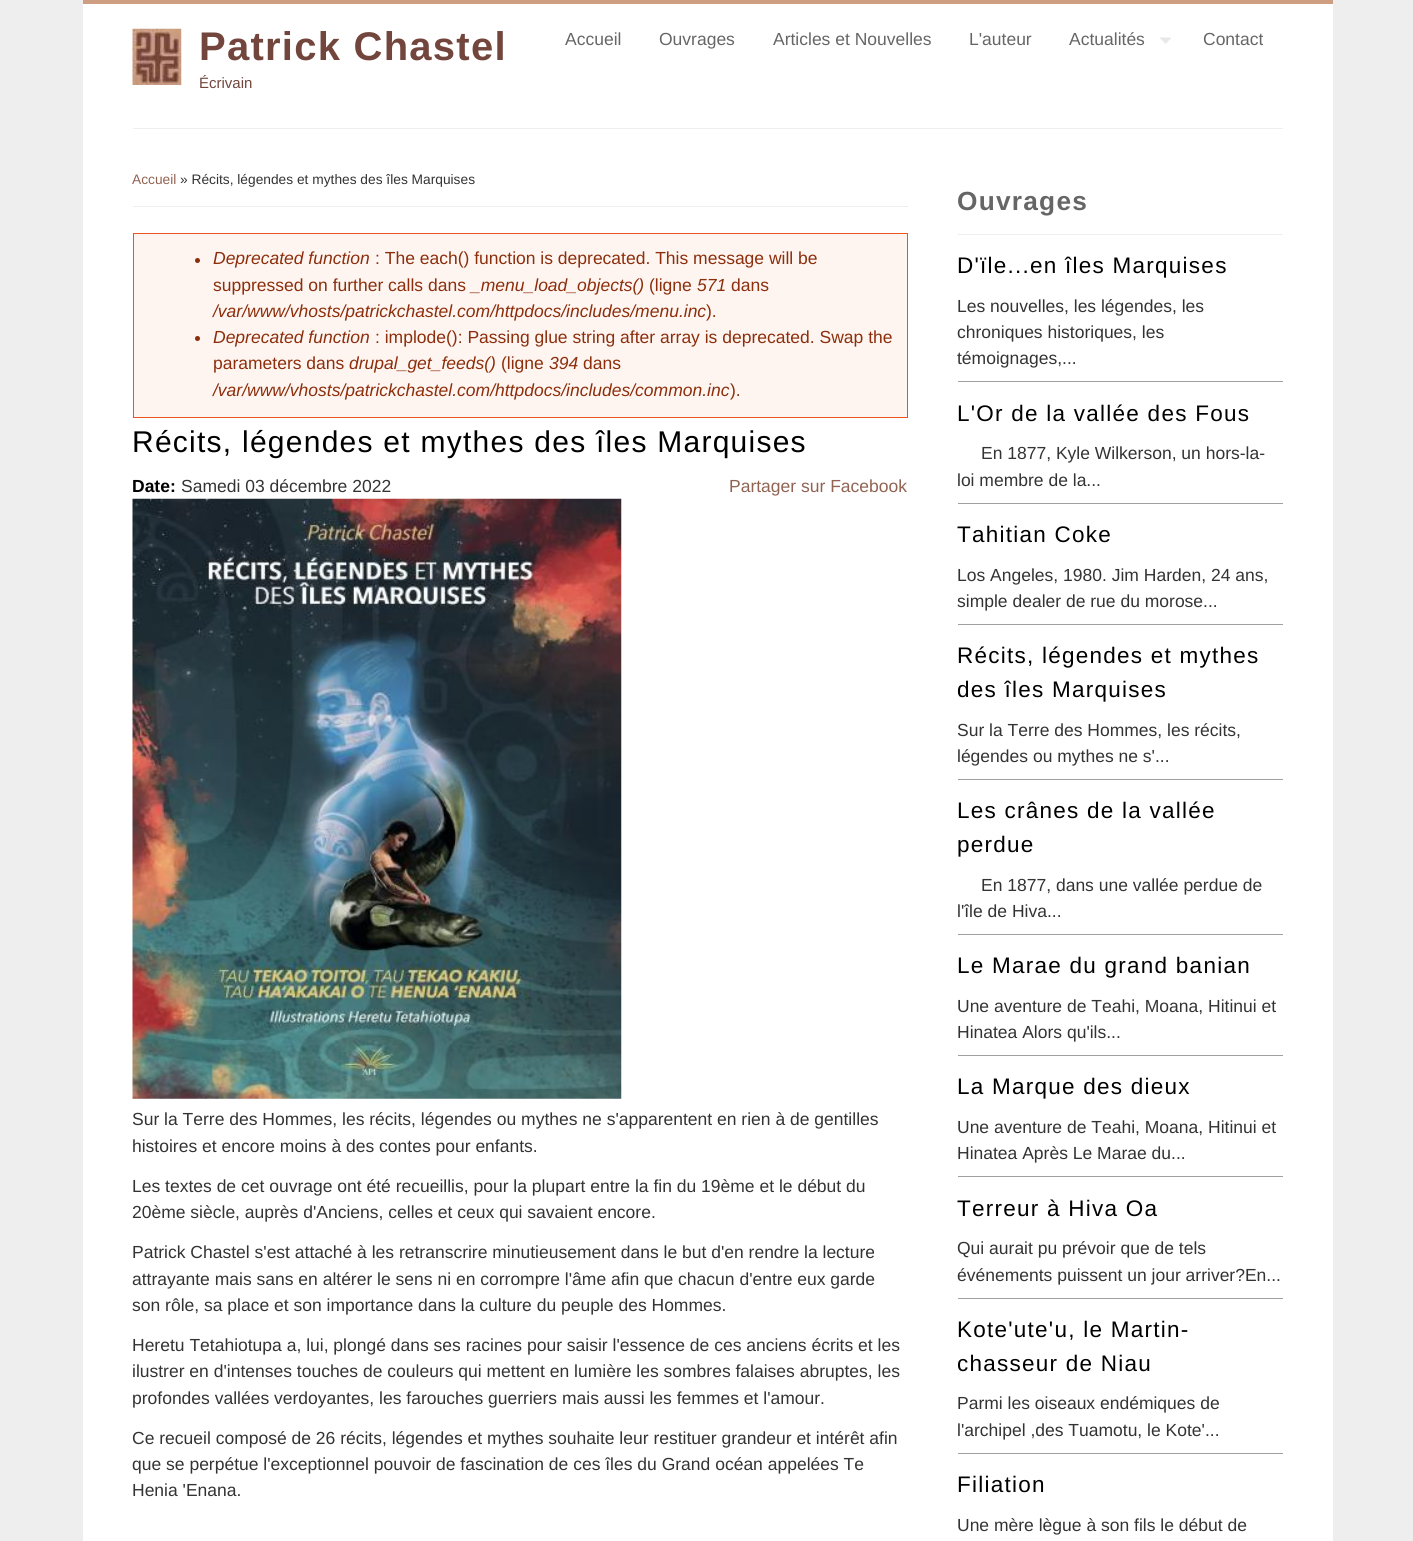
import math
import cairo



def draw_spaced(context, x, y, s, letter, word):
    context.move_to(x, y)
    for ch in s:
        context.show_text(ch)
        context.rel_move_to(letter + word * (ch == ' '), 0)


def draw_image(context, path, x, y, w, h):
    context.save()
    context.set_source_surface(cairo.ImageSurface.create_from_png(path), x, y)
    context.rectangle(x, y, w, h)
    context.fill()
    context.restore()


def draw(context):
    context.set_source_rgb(238 / 255, 238 / 255, 238 / 255)
    context.paint()
    context.set_source_rgb(1, 1, 1)
    context.rectangle(83, 4, 1250, 1537)
    context.fill()
    context.set_source_rgb(205 / 255, 158 / 255, 130 / 255)
    context.rectangle(83, 0, 1250, 4)
    context.fill()
    context.set_source_rgb(238 / 255, 238 / 255, 238 / 255)
    context.rectangle(133, 128, 1150, 1)
    context.fill()
    draw_image(context, "images/1.png", 132, 28, 50, 57)
    draw_image(context, "images/2.png", 1160, 37, 11, 7)
    context.rectangle(133, 206, 775, 1)
    context.fill()
    context.set_source_rgb(254 / 255, 245 / 255, 241 / 255)
    context.rectangle(133.5, 233.5, 774, 184)
    context.fill_preserve()
    context.set_source_rgb(237 / 255, 84 / 255, 29 / 255)
    context.set_line_width(1)
    context.stroke()
    context.set_source_rgb(140 / 255, 46 / 255, 11 / 255)
    context.arc(197.5, 260.5, 2.5, 0, 2 * math.pi)
    context.fill()
    context.arc(197.5, 338.5, 2.5, 0, 2 * math.pi)
    context.fill()
    draw_image(context, "images/3.png", 132, 498, 490, 601)
    context.set_source_rgb(238 / 255, 238 / 255, 238 / 255)
    context.rectangle(958, 234, 325, 1)
    context.fill()
    context.set_source_rgb(159 / 255, 159 / 255, 159 / 255)
    context.rectangle(958, 381, 325, 1)
    context.fill()
    context.rectangle(958, 503, 325, 1)
    context.fill()
    context.rectangle(958, 624, 325, 1)
    context.fill()
    context.rectangle(958, 779, 325, 1)
    context.fill()
    context.rectangle(958, 934, 325, 1)
    context.fill()
    context.rectangle(958, 1055, 325, 1)
    context.fill()
    context.rectangle(958, 1176, 325, 1)
    context.fill()
    context.rectangle(958, 1298, 325, 1)
    context.fill()
    context.rectangle(958, 1453, 325, 1)
    context.fill()
    context.select_font_face("Liberation Sans", cairo.FontSlant.NORMAL, cairo.FontWeight.BOLD)
    context.set_font_size(40)
    context.set_source_rgb(114 / 255, 70 / 255, 61 / 255)
    draw_spaced(context, 199, 60, "Patrick Chastel", 1.25, 0)
    context.select_font_face("Liberation Sans")
    context.set_font_size(15)
    context.move_to(199, 88)
    context.show_text("Écrivain")
    context.set_font_size(17.5)
    context.set_source_rgb(102 / 255, 102 / 255, 102 / 255)
    context.move_to(565, 45)
    context.show_text("Accueil")
    context.move_to(659, 45)
    context.show_text("Ouvrages")
    context.move_to(773, 45)
    context.show_text("Articles et Nouvelles")
    context.move_to(969, 45)
    context.show_text("L'auteur")
    context.move_to(1069, 45)
    context.show_text("Actualités")
    context.move_to(1203, 45)
    context.show_text("Contact")
    context.set_font_size(13.75)
    context.set_source_rgb(145 / 255, 99 / 255, 83 / 255)
    context.move_to(132, 184)
    context.show_text("Accueil")
    context.set_source_rgb(51 / 255, 51 / 255, 51 / 255)
    context.move_to(180, 184)
    context.show_text("» Récits, légendes et mythes des îles Marquises")
    context.select_font_face("Liberation Sans", cairo.FontSlant.ITALIC)
    context.set_font_size(17.5)
    context.set_source_rgb(140 / 255, 46 / 255, 11 / 255)
    context.move_to(213, 264)
    context.show_text("Deprecated function")
    context.select_font_face("Liberation Sans")
    context.move_to(375, 264)
    context.show_text(": The each() function is deprecated. This message will be")
    context.move_to(213, 291)
    context.show_text("suppressed on further calls dans")
    context.select_font_face("Liberation Sans", cairo.FontSlant.ITALIC)
    context.move_to(471, 291)
    context.show_text("_menu_load_objects()")
    context.select_font_face("Liberation Sans")
    context.move_to(649, 291)
    context.show_text("(ligne")
    context.select_font_face("Liberation Sans", cairo.FontSlant.ITALIC)
    context.move_to(697, 291)
    context.show_text("571")
    context.select_font_face("Liberation Sans")
    context.move_to(731, 291)
    context.show_text("dans")
    context.select_font_face("Liberation Sans", cairo.FontSlant.ITALIC)
    context.move_to(213, 317)
    context.show_text("/var/www/vhosts/patrickchastel.com/httpdocs/includes/menu.inc")
    context.select_font_face("Liberation Sans")
    context.move_to(706, 317)
    context.show_text(").")
    context.select_font_face("Liberation Sans", cairo.FontSlant.ITALIC)
    context.move_to(213, 343)
    context.show_text("Deprecated function")
    context.select_font_face("Liberation Sans")
    context.move_to(375, 343)
    context.show_text(": implode(): Passing glue string after array is deprecated. Swap the")
    context.move_to(213, 369)
    context.show_text("parameters dans")
    context.select_font_face("Liberation Sans", cairo.FontSlant.ITALIC)
    context.move_to(349, 369)
    context.show_text("drupal_get_feeds()")
    context.select_font_face("Liberation Sans")
    context.move_to(501, 369)
    context.show_text("(ligne")
    context.select_font_face("Liberation Sans", cairo.FontSlant.ITALIC)
    context.move_to(549, 369)
    context.show_text("394")
    context.select_font_face("Liberation Sans")
    context.move_to(583, 369)
    context.show_text("dans")
    context.select_font_face("Liberation Sans", cairo.FontSlant.ITALIC)
    context.move_to(213, 396)
    context.show_text("/var/www/vhosts/patrickchastel.com/httpdocs/includes/common.inc")
    context.select_font_face("Liberation Sans")
    context.move_to(730, 396)
    context.show_text(").")
    context.set_font_size(30)
    context.set_source_rgb(0, 0, 0)
    draw_spaced(context, 132, 452, "Récits, légendes et mythes des îles Marquises", 1.25, 0)
    context.select_font_face("Liberation Sans", cairo.FontSlant.NORMAL, cairo.FontWeight.BOLD)
    context.set_font_size(17.5)
    context.move_to(132, 492)
    context.show_text("Date:")
    context.select_font_face("Liberation Sans")
    context.set_source_rgb(51 / 255, 51 / 255, 51 / 255)
    context.move_to(181, 492)
    context.show_text("Samedi 03 décembre 2022")
    context.set_source_rgb(145 / 255, 99 / 255, 83 / 255)
    context.move_to(729, 492)
    context.show_text("Partager sur Facebook")
    context.set_source_rgb(51 / 255, 51 / 255, 51 / 255)
    context.move_to(132, 1125)
    context.show_text("Sur la Terre des Hommes, les récits, légendes ou mythes ne s'apparentent en rien à de gentilles")
    context.move_to(132, 1152)
    context.show_text("histoires et encore moins à des contes pour enfants.")
    context.move_to(132, 1192)
    context.show_text("Les textes de cet ouvrage ont été recueillis, pour la plupart entre la fin du 19ème et le début du")
    context.move_to(132, 1218)
    context.show_text("20ème siècle, auprès d'Anciens, celles et ceux qui savaient encore.")
    context.move_to(132, 1258)
    context.show_text("Patrick Chastel s'est attaché à les retranscrire minutieusement dans le but d'en rendre la lecture")
    context.move_to(132, 1285)
    context.show_text("attrayante mais sans en altérer le sens ni en corrompre l'âme afin que chacun d'entre eux garde")
    context.move_to(132, 1311)
    context.show_text("son rôle, sa place et son importance dans la culture du peuple des Hommes.")
    context.move_to(132, 1351)
    context.show_text("Heretu Tetahiotupa a, lui, plongé dans ses racines pour saisir l'essence de ces anciens écrits et les")
    context.move_to(132, 1377)
    context.show_text("ilustrer en d'intenses touches de couleurs qui mettent en lumière les sombres falaises abruptes, les")
    context.move_to(132, 1404)
    context.show_text("profondes vallées verdoyantes, les farouches guerriers mais aussi les femmes et l'amour.")
    context.move_to(132, 1444)
    context.show_text("Ce recueil composé de 26 récits, légendes et mythes souhaite leur restituer grandeur et intérêt afin")
    context.move_to(132, 1470)
    context.show_text("que se perpétue l'exceptionnel pouvoir de fascination de ces îles du Grand océan appelées Te")
    context.move_to(132, 1496)
    context.show_text("Henia 'Enana.")
    context.select_font_face("Liberation Sans", cairo.FontSlant.NORMAL, cairo.FontWeight.BOLD)
    context.set_font_size(26.25)
    context.set_source_rgb(102 / 255, 102 / 255, 102 / 255)
    draw_spaced(context, 957, 210, "Ouvrages", 1.25, 0)
    context.select_font_face("Liberation Sans")
    context.set_font_size(22.5)
    context.set_source_rgb(0, 0, 0)
    draw_spaced(context, 957, 273, "D'ïle...en îles Marquises", 1.25, 0)
    context.set_font_size(17.5)
    context.set_source_rgb(51 / 255, 51 / 255, 51 / 255)
    context.move_to(957, 312)
    context.show_text("Les nouvelles, les légendes, les")
    context.move_to(957, 338)
    context.show_text("chroniques historiques, les")
    context.move_to(957, 364)
    context.show_text("témoignages,...")
    context.set_font_size(22.5)
    context.set_source_rgb(0, 0, 0)
    draw_spaced(context, 957, 421, "L'Or de la vallée des Fous", 1.25, 0)
    context.set_font_size(17.5)
    context.set_source_rgb(51 / 255, 51 / 255, 51 / 255)
    context.move_to(981, 459)
    context.show_text("En 1877, Kyle Wilkerson, un hors-la-")
    context.move_to(957, 486)
    context.show_text("loi membre de la...")
    context.set_font_size(22.5)
    context.set_source_rgb(0, 0, 0)
    draw_spaced(context, 957, 542, "Tahitian Coke", 1.25, 0)
    context.set_font_size(17.5)
    context.set_source_rgb(51 / 255, 51 / 255, 51 / 255)
    context.move_to(957, 581)
    context.show_text("Los Angeles, 1980. Jim Harden, 24 ans,")
    context.move_to(957, 607)
    context.show_text("simple dealer de rue du morose...")
    context.set_font_size(22.5)
    context.set_source_rgb(0, 0, 0)
    draw_spaced(context, 957, 663, "Récits, légendes et mythes", 1.25, 0)
    draw_spaced(context, 957, 697, "des îles Marquises", 1.25, 0)
    context.set_font_size(17.5)
    context.set_source_rgb(51 / 255, 51 / 255, 51 / 255)
    context.move_to(957, 736)
    context.show_text("Sur la Terre des Hommes, les récits,")
    context.move_to(957, 762)
    context.show_text("légendes ou mythes ne s'...")
    context.set_font_size(22.5)
    context.set_source_rgb(0, 0, 0)
    draw_spaced(context, 957, 818, "Les crânes de la vallée", 1.25, 0)
    draw_spaced(context, 957, 852, "perdue", 1.25, 0)
    context.set_font_size(17.5)
    context.set_source_rgb(51 / 255, 51 / 255, 51 / 255)
    context.move_to(981, 891)
    context.show_text("En 1877, dans une vallée perdue de")
    context.move_to(957, 917)
    context.show_text("l'île de Hiva...")
    context.set_font_size(22.5)
    context.set_source_rgb(0, 0, 0)
    draw_spaced(context, 957, 973, "Le Marae du grand banian", 1.25, 0)
    context.set_font_size(17.5)
    context.set_source_rgb(51 / 255, 51 / 255, 51 / 255)
    context.move_to(957, 1012)
    context.show_text("Une aventure de Teahi, Moana, Hitinui et")
    context.move_to(957, 1038)
    context.show_text("Hinatea Alors qu'ils...")
    context.set_font_size(22.5)
    context.set_source_rgb(0, 0, 0)
    draw_spaced(context, 957, 1094, "La Marque des dieux", 1.25, 0)
    context.set_font_size(17.5)
    context.set_source_rgb(51 / 255, 51 / 255, 51 / 255)
    context.move_to(957, 1133)
    context.show_text("Une aventure de Teahi, Moana, Hitinui et")
    context.move_to(957, 1159)
    context.show_text("Hinatea Après Le Marae du...")
    context.set_font_size(22.5)
    context.set_source_rgb(0, 0, 0)
    draw_spaced(context, 957, 1216, "Terreur à Hiva Oa", 1.25, 0)
    context.set_font_size(17.5)
    context.set_source_rgb(51 / 255, 51 / 255, 51 / 255)
    context.move_to(957, 1254)
    context.show_text("Qui aurait pu prévoir que de tels")
    context.move_to(957, 1281)
    context.show_text("événements puissent un jour arriver?En...")
    context.set_font_size(22.5)
    context.set_source_rgb(0, 0, 0)
    draw_spaced(context, 957, 1337, "Kote'ute'u, le Martin-", 1.25, 0)
    draw_spaced(context, 957, 1371, "chasseur de Niau", 1.25, 0)
    context.set_font_size(17.5)
    context.set_source_rgb(51 / 255, 51 / 255, 51 / 255)
    context.move_to(957, 1409)
    context.show_text("Parmi les oiseaux endémiques de")
    context.move_to(957, 1436)
    context.show_text("l'archipel ,des Tuamotu, le Kote'...")
    context.set_font_size(22.5)
    context.set_source_rgb(0, 0, 0)
    draw_spaced(context, 957, 1492, "Filiation", 1.25, 0)
    context.set_font_size(17.5)
    context.set_source_rgb(51 / 255, 51 / 255, 51 / 255)
    context.move_to(957, 1531)
    context.show_text("Une mère lègue à son fils le début de")


surface = cairo.ImageSurface(cairo.Format.RGB24, 1413, 1541)
context = cairo.Context(surface)
options = cairo.FontOptions()
options.set_hint_metrics(cairo.HintMetrics.OFF)
options.set_hint_style(cairo.HintStyle.NONE)
context.set_font_options(options)
context.set_miter_limit(4)
draw(context)
surface.write_to_png("out.png")
